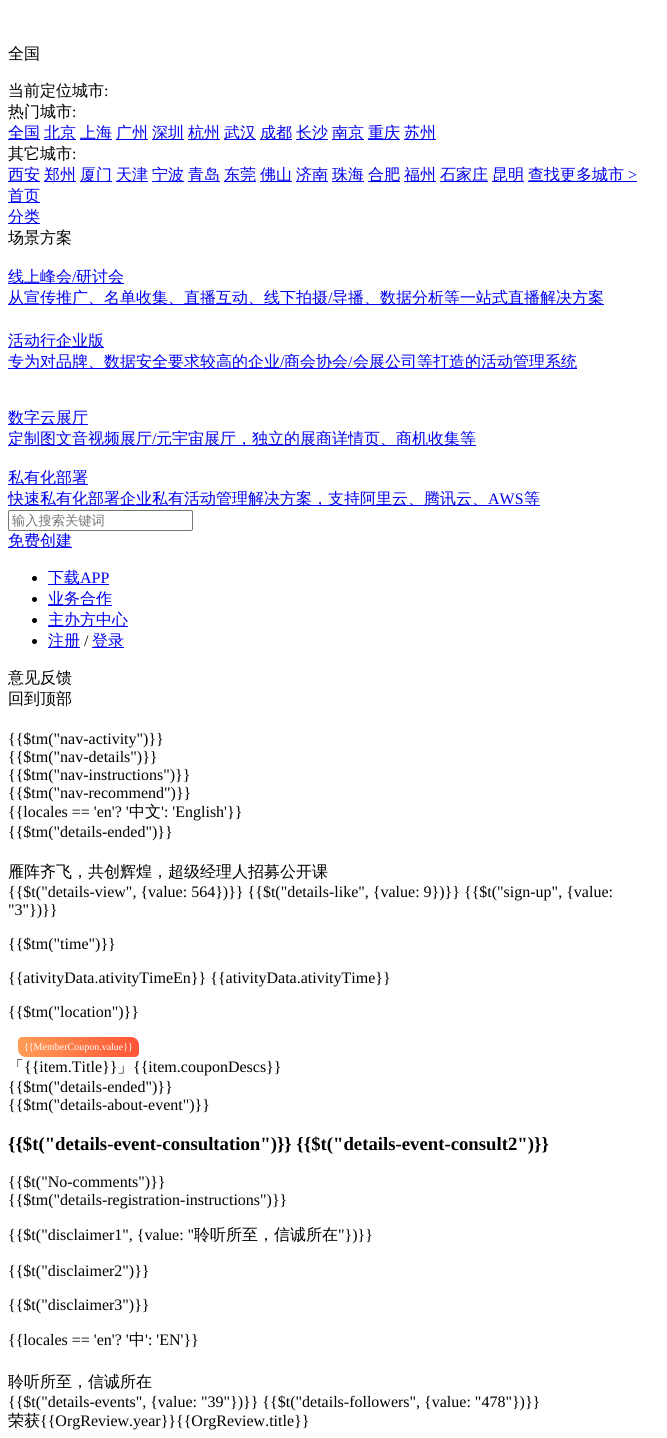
import math
import cairo



def rounded_rect(context, x, y, w, h, r):
    context.new_sub_path()
    for i, (u, v) in enumerate([(x + w - r, y + h - r), (x + r, y + h - r), (x + r, y + r), (x + w - r, y + r)]):
        context.arc(u, v, r, i * math.pi / 2, (i + 1) * math.pi / 2)
    context.close_path()


def draw(context):
    context.set_source_rgb(1, 1, 1)
    context.paint()
    context.set_source_rgb(0, 0, 238 / 255)
    context.rectangle(8, 139, 32, 1)
    context.fill()
    context.rectangle(44, 139, 32, 1)
    context.fill()
    context.rectangle(80, 139, 32, 1)
    context.fill()
    context.rectangle(116, 139, 32, 1)
    context.fill()
    context.rectangle(152, 139, 32, 1)
    context.fill()
    context.rectangle(188, 139, 32, 1)
    context.fill()
    context.rectangle(224, 139, 32, 1)
    context.fill()
    context.rectangle(260, 139, 32, 1)
    context.fill()
    context.rectangle(296, 139, 32, 1)
    context.fill()
    context.rectangle(332, 139, 32, 1)
    context.fill()
    context.rectangle(368, 139, 32, 1)
    context.fill()
    context.rectangle(404, 139, 32, 1)
    context.fill()
    context.rectangle(8, 181, 32, 1)
    context.fill()
    context.rectangle(44, 181, 32, 1)
    context.fill()
    context.rectangle(80, 181, 32, 1)
    context.fill()
    context.rectangle(116, 181, 32, 1)
    context.fill()
    context.rectangle(152, 181, 32, 1)
    context.fill()
    context.rectangle(188, 181, 32, 1)
    context.fill()
    context.rectangle(224, 181, 32, 1)
    context.fill()
    context.rectangle(260, 181, 32, 1)
    context.fill()
    context.rectangle(296, 181, 32, 1)
    context.fill()
    context.rectangle(332, 181, 32, 1)
    context.fill()
    context.rectangle(368, 181, 32, 1)
    context.fill()
    context.rectangle(404, 181, 32, 1)
    context.fill()
    context.rectangle(440, 181, 48, 1)
    context.fill()
    context.rectangle(492, 181, 32, 1)
    context.fill()
    context.rectangle(528, 181, 109, 1)
    context.fill()
    context.rectangle(8, 202, 32, 1)
    context.fill()
    context.rectangle(8, 223, 32, 1)
    context.fill()
    context.rectangle(8, 283, 116, 1)
    context.fill()
    context.rectangle(8, 304, 596, 1)
    context.fill()
    context.rectangle(8, 347, 96, 1)
    context.fill()
    context.rectangle(8, 368, 569, 1)
    context.fill()
    context.rectangle(8, 424, 80, 1)
    context.fill()
    context.rectangle(8, 445, 468, 1)
    context.fill()
    context.rectangle(8, 484, 80, 1)
    context.fill()
    context.rectangle(8, 505, 532, 1)
    context.fill()
    rounded_rect(context, 8.5, 510.5, 184, 20, 1.5)
    context.set_source_rgb(118 / 255, 118 / 255, 118 / 255)
    context.set_line_width(1)
    context.stroke()
    context.set_source_rgb(0, 0, 238 / 255)
    context.rectangle(8, 547, 64, 1)
    context.fill()
    context.set_source_rgb(0, 0, 0)
    context.arc(34.5, 578.5, 2.5, 0, 2 * math.pi)
    context.fill()
    context.set_source_rgb(0, 0, 238 / 255)
    context.rectangle(48, 584, 61, 1)
    context.fill()
    context.set_source_rgb(0, 0, 0)
    context.arc(34.5, 599.5, 2.5, 0, 2 * math.pi)
    context.fill()
    context.set_source_rgb(0, 0, 238 / 255)
    context.rectangle(48, 605, 64, 1)
    context.fill()
    context.set_source_rgb(0, 0, 0)
    context.arc(34.5, 620.5, 2.5, 0, 2 * math.pi)
    context.fill()
    context.set_source_rgb(0, 0, 238 / 255)
    context.rectangle(48, 626, 80, 1)
    context.fill()
    context.set_source_rgb(0, 0, 0)
    context.arc(34.5, 641.5, 2.5, 0, 2 * math.pi)
    context.fill()
    context.set_source_rgb(0, 0, 238 / 255)
    context.rectangle(48, 647, 32, 1)
    context.fill()
    context.rectangle(92, 647, 32, 1)
    context.fill()
    gradient = cairo.LinearGradient(18, 1047, 139, 1047)
    gradient.add_color_stop_rgba(0, 1, 157 / 255, 86 / 255, 1)
    gradient.add_color_stop_rgba(1, 1, 84 / 255, 54 / 255, 1)
    context.set_source(gradient)
    context.new_path()
    context.move_to(22, 1037)
    context.line_to(131, 1037)
    context.curve_to(135.5, 1037, 139, 1040.5, 139, 1045)
    context.line_to(139, 1053)
    context.curve_to(139, 1055, 137, 1057, 135, 1057)
    context.line_to(26, 1057)
    context.curve_to(21.5, 1057, 18, 1053.5, 18, 1049)
    context.line_to(18, 1041)
    context.curve_to(18, 1039, 20, 1037, 22, 1037)
    context.close_path()
    context.fill()
    context.select_font_face("WenQuanYi Zen Hei Medium")
    context.set_font_size(16)
    context.set_source_rgb(0, 0, 0)
    context.move_to(8, 59)
    context.show_text("全国")
    context.move_to(8, 96)
    context.show_text("当前定位城市")
    context.select_font_face("Liberation Serif")
    context.move_to(104, 96)
    context.show_text(":")
    context.select_font_face("WenQuanYi Zen Hei Medium")
    context.move_to(8, 117)
    context.show_text("热门城市")
    context.select_font_face("Liberation Serif")
    context.move_to(72, 117)
    context.show_text(":")
    context.select_font_face("WenQuanYi Zen Hei Medium")
    context.set_source_rgb(0, 0, 238 / 255)
    context.move_to(8, 138)
    context.show_text("全国")
    context.move_to(44, 138)
    context.show_text("北京")
    context.move_to(80, 138)
    context.show_text("上海")
    context.move_to(116, 138)
    context.show_text("广州")
    context.move_to(152, 138)
    context.show_text("深圳")
    context.move_to(188, 138)
    context.show_text("杭州")
    context.move_to(224, 138)
    context.show_text("武汉")
    context.move_to(260, 138)
    context.show_text("成都")
    context.move_to(296, 138)
    context.show_text("长沙")
    context.move_to(332, 138)
    context.show_text("南京")
    context.move_to(368, 138)
    context.show_text("重庆")
    context.move_to(404, 138)
    context.show_text("苏州")
    context.set_source_rgb(0, 0, 0)
    context.move_to(8, 159)
    context.show_text("其它城市")
    context.select_font_face("Liberation Serif")
    context.move_to(72, 159)
    context.show_text(":")
    context.select_font_face("WenQuanYi Zen Hei Medium")
    context.set_source_rgb(0, 0, 238 / 255)
    context.move_to(8, 180)
    context.show_text("西安")
    context.move_to(44, 180)
    context.show_text("郑州")
    context.move_to(80, 180)
    context.show_text("厦门")
    context.move_to(116, 180)
    context.show_text("天津")
    context.move_to(152, 180)
    context.show_text("宁波")
    context.move_to(188, 180)
    context.show_text("青岛")
    context.move_to(224, 180)
    context.show_text("东莞")
    context.move_to(260, 180)
    context.show_text("佛山")
    context.move_to(296, 180)
    context.show_text("济南")
    context.move_to(332, 180)
    context.show_text("珠海")
    context.move_to(368, 180)
    context.show_text("合肥")
    context.move_to(404, 180)
    context.show_text("福州")
    context.move_to(440, 180)
    context.show_text("石家庄")
    context.move_to(492, 180)
    context.show_text("昆明")
    context.move_to(528, 180)
    context.show_text("查找更多城市")
    context.select_font_face("Liberation Serif")
    context.move_to(628, 180)
    context.show_text(">")
    context.select_font_face("WenQuanYi Zen Hei Medium")
    context.move_to(8, 201)
    context.show_text("首页")
    context.move_to(8, 222)
    context.show_text("分类")
    context.set_source_rgb(0, 0, 0)
    context.move_to(8, 243)
    context.show_text("场景方案")
    context.set_source_rgb(0, 0, 238 / 255)
    context.move_to(8, 282)
    context.show_text("线上峰会")
    context.select_font_face("Liberation Serif")
    context.move_to(72, 282)
    context.show_text("/")
    context.select_font_face("WenQuanYi Zen Hei Medium")
    context.move_to(76, 282)
    context.show_text("研讨会")
    context.move_to(8, 303)
    context.show_text("从宣传推广、名单收集、直播互动、线下拍摄")
    context.select_font_face("Liberation Serif")
    context.move_to(328, 303)
    context.show_text("/")
    context.select_font_face("WenQuanYi Zen Hei Medium")
    context.move_to(332, 303)
    context.show_text("导播、数据分析等一站式直播解决方案")
    context.move_to(8, 346)
    context.show_text("活动行企业版")
    context.move_to(8, 367)
    context.show_text("专为对品牌、数据安全要求较高的企业")
    context.select_font_face("Liberation Serif")
    context.move_to(280, 367)
    context.show_text("/")
    context.select_font_face("WenQuanYi Zen Hei Medium")
    context.move_to(284, 367)
    context.show_text("商会协会")
    context.select_font_face("Liberation Serif")
    context.move_to(348, 367)
    context.show_text("/")
    context.select_font_face("WenQuanYi Zen Hei Medium")
    context.move_to(353, 367)
    context.show_text("会展公司等打造的活动管理系统")
    context.move_to(8, 423)
    context.show_text("数字云展厅")
    context.move_to(8, 444)
    context.show_text("定制图文音视频展厅")
    context.select_font_face("Liberation Serif")
    context.move_to(152, 444)
    context.show_text("/")
    context.select_font_face("WenQuanYi Zen Hei Medium")
    context.move_to(156, 444)
    context.show_text("元宇宙展厅，独立的展商详情页、商机收集等")
    context.move_to(8, 483)
    context.show_text("私有化部署")
    context.move_to(8, 504)
    context.show_text("快速私有化部署企业私有活动管理解决方案，支持阿里云、腾讯云、")
    context.select_font_face("Liberation Serif")
    context.move_to(488, 504)
    context.show_text("AWS")
    context.select_font_face("WenQuanYi Zen Hei Medium")
    context.move_to(524, 504)
    context.show_text("等")
    context.set_font_size(13.25)
    context.set_source_rgb(117 / 255, 117 / 255, 117 / 255)
    context.move_to(12, 525)
    context.show_text("输入搜索关键词")
    context.set_font_size(16)
    context.set_source_rgb(0, 0, 238 / 255)
    context.move_to(8, 546)
    context.show_text("免费创建")
    context.move_to(48, 583)
    context.show_text("下载")
    context.select_font_face("Liberation Serif")
    context.move_to(80, 583)
    context.show_text("APP")
    context.select_font_face("WenQuanYi Zen Hei Medium")
    context.move_to(48, 604)
    context.show_text("业务合作")
    context.move_to(48, 625)
    context.show_text("主办方中心")
    context.move_to(48, 646)
    context.show_text("注册")
    context.select_font_face("Liberation Serif")
    context.set_source_rgb(0, 0, 0)
    context.move_to(84, 646)
    context.show_text("/")
    context.select_font_face("WenQuanYi Zen Hei Medium")
    context.set_source_rgb(0, 0, 238 / 255)
    context.move_to(92, 646)
    context.show_text("登录")
    context.set_source_rgb(0, 0, 0)
    context.move_to(8, 683)
    context.show_text("意见反馈")
    context.move_to(8, 704)
    context.show_text("回到顶部")
    context.select_font_face("Liberation Serif")
    context.move_to(8, 744)
    context.show_text("{{$tm(\"nav-activity\")}}")
    context.move_to(8, 762)
    context.show_text("{{$tm(\"nav-details\")}}")
    context.move_to(8, 780)
    context.show_text("{{$tm(\"nav-instructions\")}}")
    context.move_to(8, 798)
    context.show_text("{{$tm(\"nav-recommend\")}}")
    context.move_to(8, 817)
    context.show_text("{{locales == 'en'? '")
    context.select_font_face("WenQuanYi Zen Hei Medium")
    context.move_to(129, 817)
    context.show_text("中文")
    context.select_font_face("Liberation Serif")
    context.move_to(161, 817)
    context.show_text("': 'English'}}")
    context.move_to(8, 837)
    context.show_text("{{$tm(\"details-ended\")}}")
    context.select_font_face("WenQuanYi Zen Hei Medium")
    context.move_to(8, 877)
    context.show_text("雁阵齐飞，共创辉煌，超级经理人招募公开课")
    context.select_font_face("Liberation Serif")
    context.move_to(8, 897)
    context.show_text("{{$t(\"details-view\", {value: 564})}} {{$t(\"details-like\", {value: 9})}} {{$t(\"sign-up\", {value:")
    context.move_to(8, 915)
    context.show_text("\"3\"})}}")
    context.move_to(8, 949)
    context.show_text("{{$tm(\"time\")}}")
    context.move_to(8, 983)
    context.show_text("{{ativityData.ativityTimeEn}} {{ativityData.ativityTime}}")
    context.move_to(8, 1017)
    context.show_text("{{$tm(\"location\")}}")
    context.set_font_size(10)
    context.set_source_rgb(1, 1, 1)
    context.move_to(24, 1050)
    context.show_text("{{MemberCoupon.value}}")
    context.select_font_face("WenQuanYi Zen Hei Medium")
    context.set_font_size(16)
    context.set_source_rgb(0, 0, 0)
    context.move_to(8, 1072)
    context.show_text("「")
    context.select_font_face("Liberation Serif")
    context.move_to(24, 1072)
    context.show_text("{{item.Title}}")
    context.select_font_face("WenQuanYi Zen Hei Medium")
    context.move_to(117, 1072)
    context.show_text("」")
    context.select_font_face("Liberation Serif")
    context.move_to(133, 1072)
    context.show_text("{{item.couponDescs}}")
    context.move_to(8, 1092)
    context.show_text("{{$tm(\"details-ended\")}}")
    context.move_to(8, 1110)
    context.show_text("{{$tm(\"details-about-event\")}}")
    context.select_font_face("Liberation Serif", cairo.FontSlant.NORMAL, cairo.FontWeight.BOLD)
    context.set_font_size(18.75)
    context.move_to(8, 1150)
    context.show_text("{{$t(\"details-event-consultation\")}} {{$t(\"details-event-consult2\")}}")
    context.select_font_face("Liberation Serif")
    context.set_font_size(16)
    context.move_to(8, 1187)
    context.show_text("{{$t(\"No-comments\")}}")
    context.move_to(8, 1205)
    context.show_text("{{$tm(\"details-registration-instructions\")}}")
    context.move_to(8, 1240)
    context.show_text("{{$t(\"disclaimer1\", {value: \"")
    context.select_font_face("WenQuanYi Zen Hei Medium")
    context.move_to(194, 1240)
    context.show_text("聆听所至，信诚所在")
    context.select_font_face("Liberation Serif")
    context.move_to(338, 1240)
    context.show_text("\"})}}")
    context.move_to(8, 1276)
    context.show_text("{{$t(\"disclaimer2\")}}")
    context.move_to(8, 1310)
    context.show_text("{{$t(\"disclaimer3\")}}")
    context.move_to(8, 1345)
    context.show_text("{{locales == 'en'? '")
    context.select_font_face("WenQuanYi Zen Hei Medium")
    context.move_to(129, 1345)
    context.show_text("中")
    context.select_font_face("Liberation Serif")
    context.move_to(145, 1345)
    context.show_text("': 'EN'}}")
    context.select_font_face("WenQuanYi Zen Hei Medium")
    context.move_to(8, 1387)
    context.show_text("聆听所至，信诚所在")
    context.select_font_face("Liberation Serif")
    context.move_to(8, 1407)
    context.show_text("{{$t(\"details-events\", {value: \"39\"})}} {{$t(\"details-followers\", {value: \"478\"})}}")
    context.select_font_face("WenQuanYi Zen Hei Medium")
    context.move_to(8, 1426)
    context.show_text("荣获")
    context.select_font_face("Liberation Serif")
    context.move_to(40, 1426)
    context.show_text("{{OrgReview.year}}{{OrgReview.title}}")


surface = cairo.ImageSurface(cairo.Format.RGB24, 667, 1438)
context = cairo.Context(surface)
options = cairo.FontOptions()
options.set_hint_metrics(cairo.HintMetrics.OFF)
options.set_hint_style(cairo.HintStyle.NONE)
context.set_font_options(options)
context.set_miter_limit(4)
draw(context)
surface.write_to_png("out.png")
